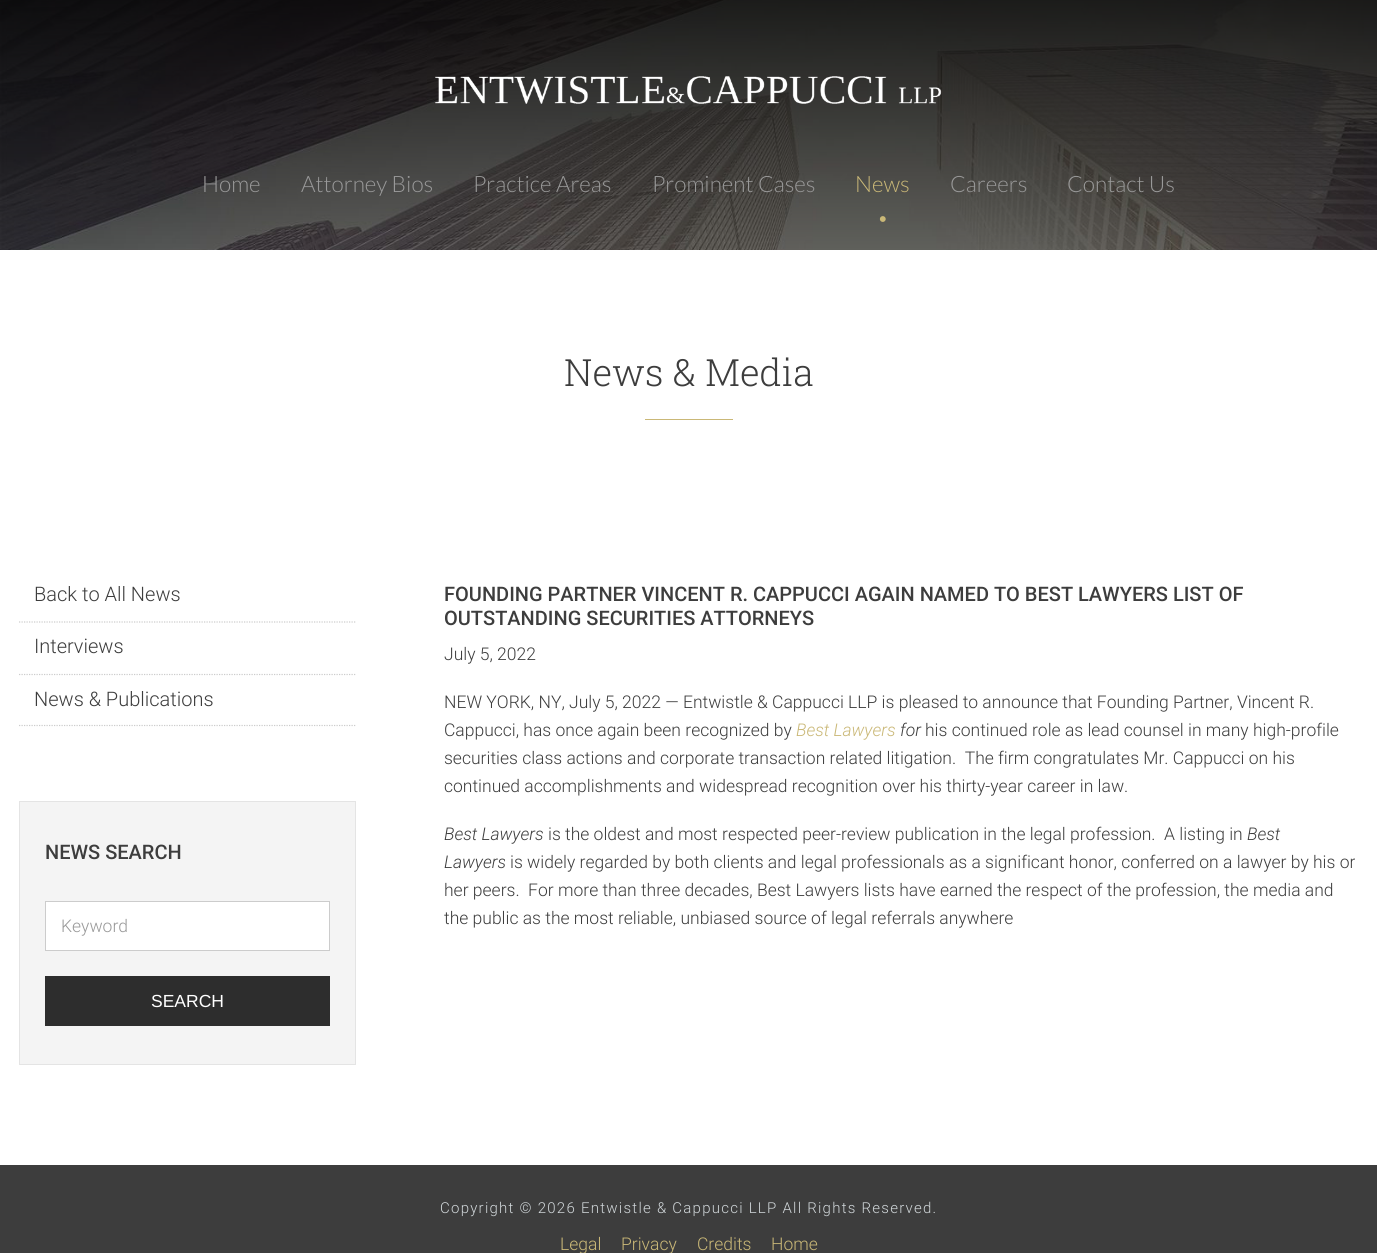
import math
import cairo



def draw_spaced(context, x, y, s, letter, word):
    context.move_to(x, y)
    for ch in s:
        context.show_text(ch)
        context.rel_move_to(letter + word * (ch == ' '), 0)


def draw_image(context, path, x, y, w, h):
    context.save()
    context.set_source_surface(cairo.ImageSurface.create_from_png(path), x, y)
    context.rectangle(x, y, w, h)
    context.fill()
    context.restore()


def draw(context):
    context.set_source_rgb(1, 1, 1)
    context.paint()
    draw_image(context, "images/1.png", 0, 0, 1377, 250)
    draw_image(context, "images/2.png", 435, 76, 507, 28)
    context.set_source_rgb(202 / 255, 184 / 255, 119 / 255)
    context.rectangle(645, 419, 88, 1)
    context.fill()
    context.new_path()
    context.move_to(19, 622)
    context.line_to(356, 622)
    context.set_source_rgb(204 / 255, 204 / 255, 204 / 255)
    context.set_line_width(1.2)
    context.set_dash([1.25, 1.25])
    context.stroke()
    context.new_path()
    context.move_to(19, 674.5)
    context.line_to(356, 674.5)
    context.stroke()
    context.new_path()
    context.move_to(19, 725.5)
    context.line_to(356, 725.5)
    context.stroke()
    context.set_source_rgb(244 / 255, 244 / 255, 244 / 255)
    context.rectangle(19.5, 801.5, 336, 263)
    context.fill_preserve()
    context.set_source_rgb(228 / 255, 228 / 255, 228 / 255)
    context.set_line_width(1)
    context.set_dash([])
    context.stroke()
    context.set_source_rgb(1, 1, 1)
    context.rectangle(45.5, 901.5, 284, 49)
    context.fill_preserve()
    context.set_source_rgb(204 / 255, 204 / 255, 204 / 255)
    context.stroke()
    context.set_source_rgb(45 / 255, 45 / 255, 45 / 255)
    context.rectangle(45, 976, 285, 50)
    context.fill()
    context.set_source_rgb(61 / 255, 61 / 255, 61 / 255)
    context.rectangle(0, 1165, 1377, 88)
    context.fill()
    context.select_font_face("Lato Light")
    context.set_font_size(22.5)
    context.set_source_rgb(153 / 255, 153 / 255, 153 / 255)
    context.move_to(202, 192)
    context.show_text("Home")
    context.move_to(301, 192)
    context.show_text("Attorney Bios")
    context.move_to(473, 192)
    context.show_text("Practice Areas")
    context.move_to(652, 192)
    context.show_text("Prominent Cases")
    context.set_source_rgb(202 / 255, 184 / 255, 119 / 255)
    context.move_to(855, 192)
    context.show_text("News")
    context.set_font_size(20)
    context.move_to(877, 225)
    context.show_text("•")
    context.set_font_size(22.5)
    context.set_source_rgb(153 / 255, 153 / 255, 153 / 255)
    context.move_to(950, 192)
    context.show_text("Careers")
    context.move_to(1067, 192)
    context.show_text("Contact Us")
    context.select_font_face("Roboto Slab Light")
    context.set_font_size(37.5)
    context.set_source_rgb(61 / 255, 61 / 255, 61 / 255)
    context.move_to(564, 386)
    context.show_text("News & Media")
    context.select_font_face("Roboto Light")
    context.set_font_size(20)
    context.move_to(34, 601)
    context.show_text("Back to All News")
    context.move_to(34, 653)
    context.show_text("Interviews")
    context.move_to(34, 706)
    context.show_text("News & Publications")
    context.select_font_face("Roboto Medium")
    context.move_to(45, 859)
    context.show_text("NEWS SEARCH")
    context.select_font_face("Roboto Light")
    context.set_font_size(17.5)
    context.set_source_rgb(153 / 255, 153 / 255, 153 / 255)
    context.move_to(61, 932)
    context.show_text("Keyword")
    context.select_font_face("Liberation Sans")
    context.set_source_rgb(1, 1, 1)
    context.move_to(151, 1007)
    context.show_text("SEARCH")
    context.select_font_face("Roboto Medium")
    context.set_font_size(20)
    context.set_source_rgb(61 / 255, 61 / 255, 61 / 255)
    context.move_to(444, 601)
    context.show_text("FOUNDING PARTNER VINCENT R. CAPPUCCI AGAIN NAMED TO BEST LAWYERS LIST OF")
    context.move_to(444, 625)
    context.show_text("OUTSTANDING SECURITIES ATTORNEYS")
    context.select_font_face("Roboto Light")
    context.set_font_size(17.5)
    context.move_to(444, 660)
    context.show_text("July 5, 2022")
    context.move_to(444, 708)
    context.show_text("NEW YORK, NY, July 5, 2022 — Entwistle & Cappucci LLP is pleased to announce that Founding Partner, Vincent R.")
    context.move_to(444, 736)
    context.show_text("Cappucci, has once again been recognized by")
    context.select_font_face("Roboto Light", cairo.FontSlant.ITALIC)
    context.set_source_rgb(202 / 255, 184 / 255, 119 / 255)
    context.move_to(796, 736)
    context.show_text("Best Lawyers")
    context.set_source_rgb(61 / 255, 61 / 255, 61 / 255)
    context.move_to(900, 736)
    context.show_text("for")
    context.select_font_face("Roboto Light")
    context.move_to(925, 736)
    context.show_text("his continued role as lead counsel in many high-profile")
    context.move_to(444, 764)
    context.show_text("securities class actions and corporate transaction related litigation.  The firm congratulates Mr. Cappucci on his")
    context.move_to(444, 792)
    context.show_text("continued accomplishments and widespread recognition over his thirty-year career in law.")
    context.select_font_face("Roboto Light", cairo.FontSlant.ITALIC)
    context.move_to(444, 840)
    context.show_text("Best Lawyers")
    context.select_font_face("Roboto Light")
    context.move_to(548, 840)
    context.show_text("is the oldest and most respected peer-review publication in the legal profession.  A listing in")
    context.select_font_face("Roboto Light", cairo.FontSlant.ITALIC)
    context.move_to(1247, 840)
    context.show_text("Best")
    context.move_to(444, 868)
    context.show_text("Lawyers")
    context.select_font_face("Roboto Light")
    context.move_to(510, 868)
    context.show_text("is widely regarded by both clients and legal professionals as a significant honor, conferred on a lawyer by his or")
    context.move_to(444, 896)
    context.show_text("her peers.  For more than three decades, Best Lawyers lists have earned the respect of the profession, the media and")
    context.move_to(444, 924)
    context.show_text("the public as the most reliable, unbiased source of legal referrals anywhere")
    context.set_font_size(15)
    context.set_source_rgb(208 / 255, 214 / 255, 217 / 255)
    draw_spaced(context, 440, 1213, "Copyright © 2026 Entwistle & Cappucci LLP All Rights Reserved.", 1.25, 0)
    context.set_font_size(17.5)
    context.set_source_rgb(202 / 255, 184 / 255, 119 / 255)
    context.move_to(560, 1250)
    context.show_text("Legal")
    context.move_to(621, 1250)
    context.show_text("Privacy")
    context.move_to(697, 1250)
    context.show_text("Credits")
    context.move_to(771, 1250)
    context.show_text("Home")


surface = cairo.ImageSurface(cairo.Format.RGB24, 1377, 1253)
context = cairo.Context(surface)
options = cairo.FontOptions()
options.set_hint_metrics(cairo.HintMetrics.OFF)
options.set_hint_style(cairo.HintStyle.NONE)
context.set_font_options(options)
context.set_miter_limit(4)
draw(context)
surface.write_to_png("out.png")
